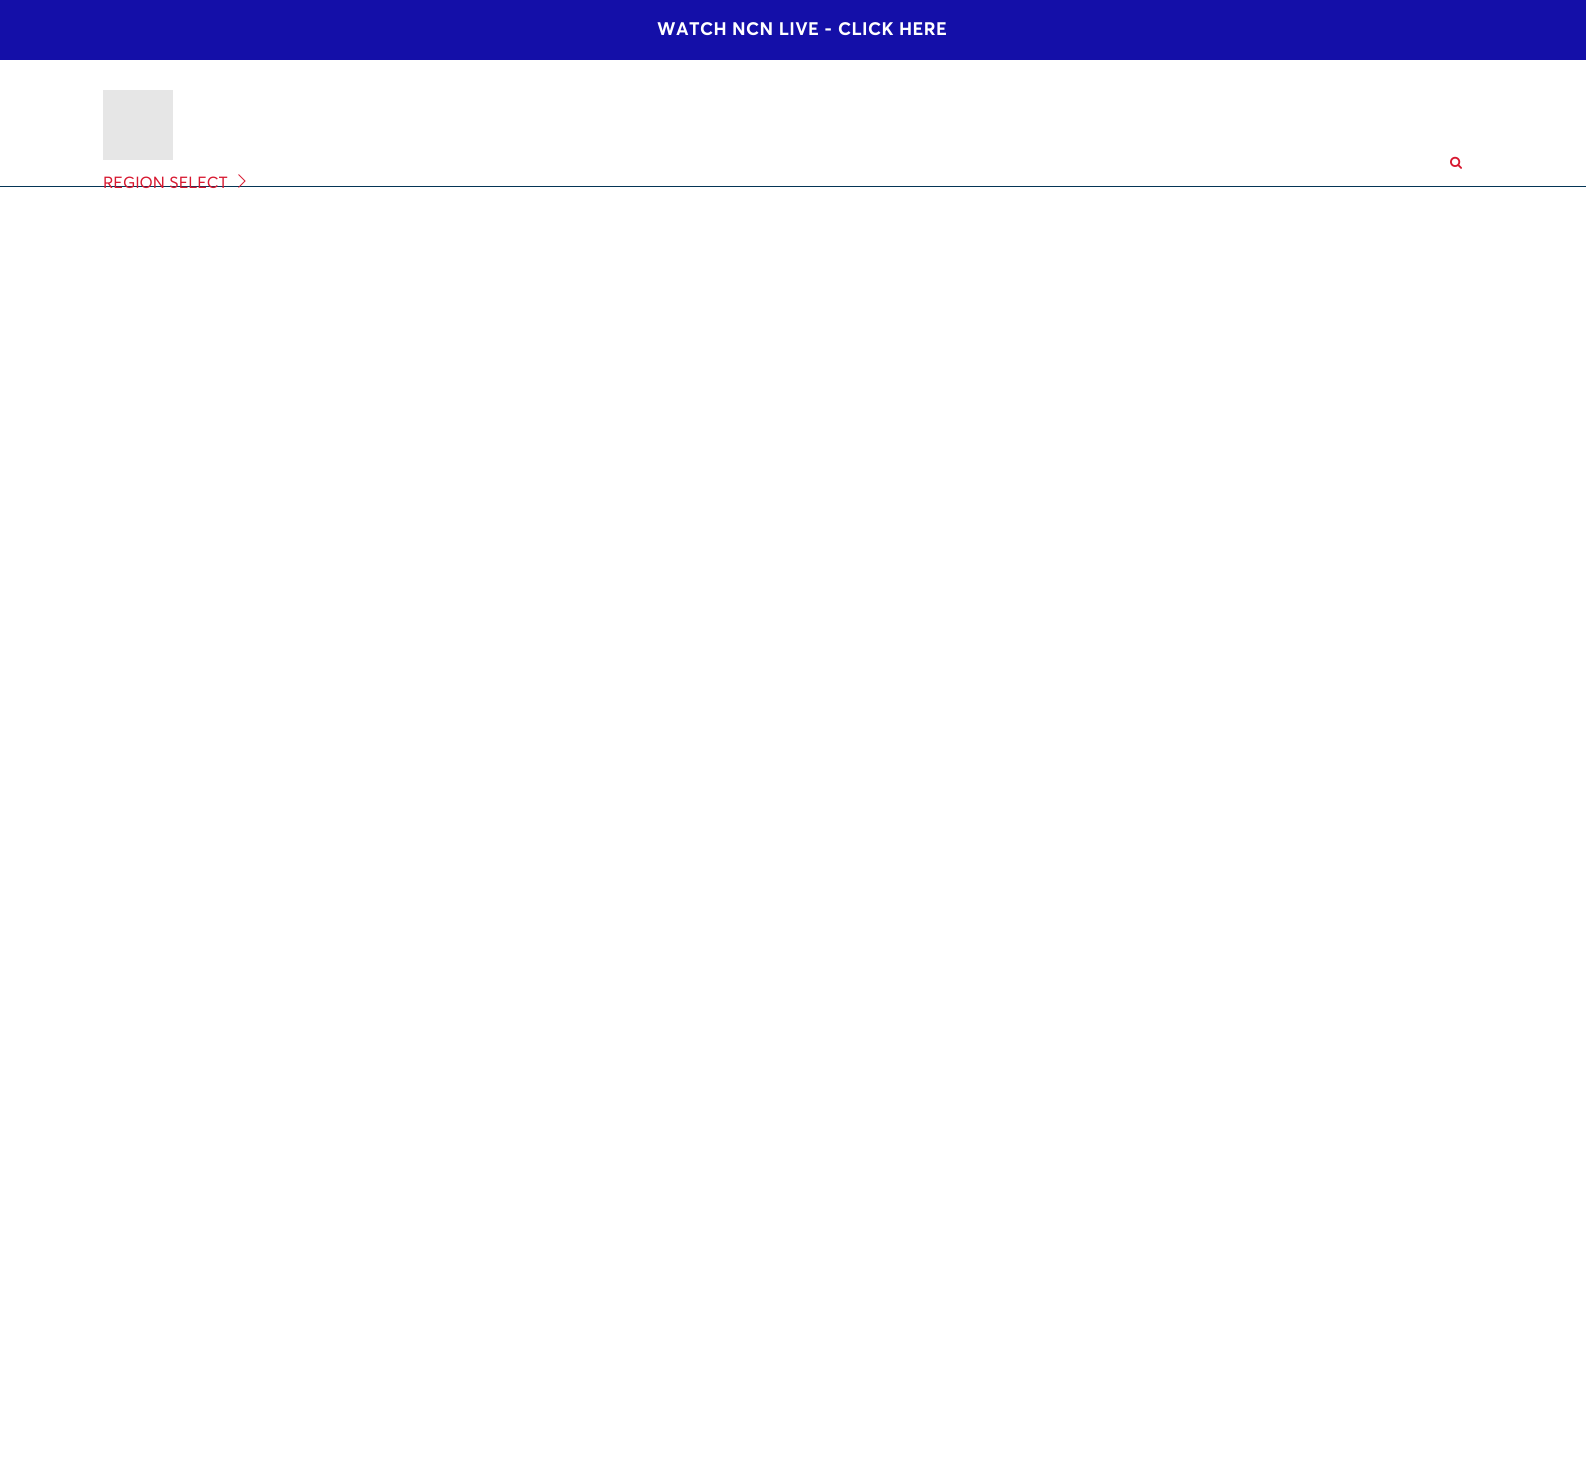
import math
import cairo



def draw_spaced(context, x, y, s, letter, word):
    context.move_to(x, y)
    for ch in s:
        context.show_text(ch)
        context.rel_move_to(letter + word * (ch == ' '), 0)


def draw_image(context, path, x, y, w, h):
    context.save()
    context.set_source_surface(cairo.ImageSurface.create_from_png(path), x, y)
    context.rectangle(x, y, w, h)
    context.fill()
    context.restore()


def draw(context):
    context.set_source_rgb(1, 1, 1)
    context.paint()
    context.set_source_rgb(20 / 255, 15 / 255, 168 / 255)
    context.rectangle(0, 0, 1586, 60)
    context.fill()
    context.set_source_rgb(4 / 255, 53 / 255, 86 / 255)
    context.rectangle(0, 186, 1586, 1)
    context.fill()
    draw_image(context, "images/1.png", 1450, 156, 12, 13)
    context.set_source_rgb(230 / 255, 230 / 255, 230 / 255)
    context.rectangle(103, 90, 70, 70)
    context.fill()
    context.new_path()
    context.move_to(238.5, 174.5)
    context.line_to(245, 181)
    context.line_to(238.5, 187.5)
    context.set_source_rgb(215 / 255, 23 / 255, 47 / 255)
    context.set_line_width(1)
    context.stroke()
    context.select_font_face("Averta", cairo.FontSlant.NORMAL, cairo.FontWeight.BOLD)
    context.set_font_size(18)
    context.set_source_rgb(1, 1, 1)
    draw_spaced(context, 657, 35, "WATCH NCN LIVE -", 0.4, 0)
    draw_spaced(context, 838, 35, "CLICK HERE", 0.4, 0)
    context.select_font_face("Averta")
    context.set_font_size(16)
    context.set_source_rgb(215 / 255, 23 / 255, 47 / 255)
    context.move_to(103, 188)
    context.show_text("REGION SELECT")


surface = cairo.ImageSurface(cairo.Format.RGB24, 1586, 1470)
context = cairo.Context(surface)
options = cairo.FontOptions()
options.set_hint_metrics(cairo.HintMetrics.OFF)
options.set_hint_style(cairo.HintStyle.NONE)
context.set_font_options(options)
context.set_miter_limit(4)
draw(context)
surface.write_to_png("out.png")
